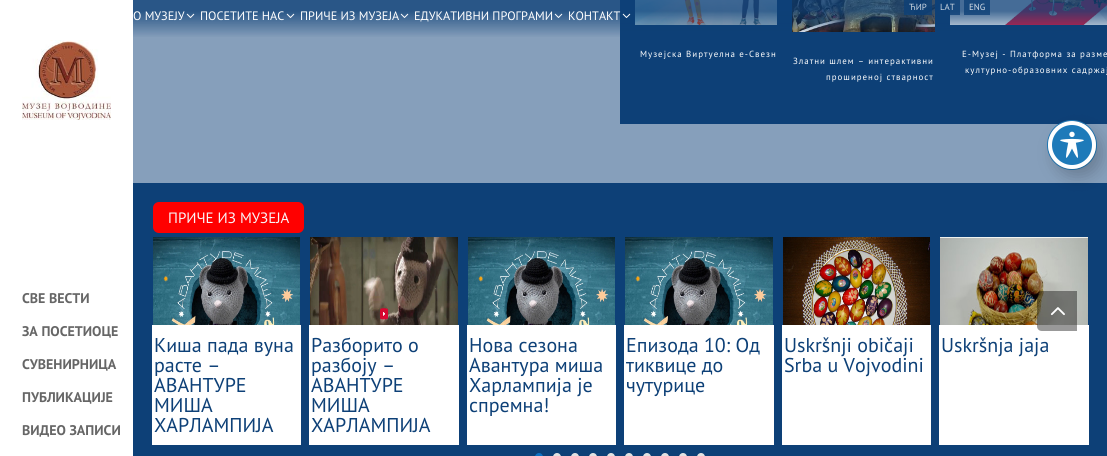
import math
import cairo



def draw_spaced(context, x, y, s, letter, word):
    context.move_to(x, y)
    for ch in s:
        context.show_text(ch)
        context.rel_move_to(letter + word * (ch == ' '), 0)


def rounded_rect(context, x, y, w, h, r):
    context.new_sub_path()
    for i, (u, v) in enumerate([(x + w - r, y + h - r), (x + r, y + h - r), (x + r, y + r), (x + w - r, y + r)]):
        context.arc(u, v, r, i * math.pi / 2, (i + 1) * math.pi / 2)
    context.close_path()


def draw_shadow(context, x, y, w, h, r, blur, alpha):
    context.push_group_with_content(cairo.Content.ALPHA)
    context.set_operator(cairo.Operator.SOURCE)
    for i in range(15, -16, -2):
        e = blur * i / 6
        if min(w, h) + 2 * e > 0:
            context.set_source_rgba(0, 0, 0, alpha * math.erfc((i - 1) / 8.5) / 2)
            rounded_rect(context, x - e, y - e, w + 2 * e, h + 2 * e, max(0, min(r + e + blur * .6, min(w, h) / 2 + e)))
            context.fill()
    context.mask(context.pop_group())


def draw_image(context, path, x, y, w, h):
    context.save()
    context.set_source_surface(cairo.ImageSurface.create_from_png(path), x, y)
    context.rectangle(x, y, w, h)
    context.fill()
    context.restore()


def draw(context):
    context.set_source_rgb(1, 1, 1)
    context.paint()
    draw_image(context, "images/1.png", 22, 40, 89, 80)
    context.set_source_rgb(134 / 255, 159 / 255, 187 / 255)
    context.rectangle(133, 0, 974, 183)
    context.fill()
    context.set_source_rgb(13 / 255, 64 / 255, 119 / 255)
    context.rectangle(620, 0, 487, 124)
    context.fill()
    draw_image(context, "images/4.png", 635, 0, 142, 25)
    draw_image(context, "images/5.png", 792, 0, 143, 32)
    draw_image(context, "images/6.png", 950, 0, 157, 25)
    gradient = cairo.LinearGradient(620, 0, 620, 38)
    gradient.add_color_stop_rgba(0.29, 13 / 255, 64 / 255, 119 / 255, 0.77)
    gradient.add_color_stop_rgba(1, 13 / 255, 64 / 255, 119 / 255, 0)
    context.set_source(gradient)
    context.rectangle(133, 0, 974, 37)
    context.fill()
    context.set_source_rgba(13 / 255, 64 / 255, 119 / 255, 0.8)
    context.rectangle(904, 0, 28, 15)
    context.fill()
    context.rectangle(950, 0, 10, 15)
    context.fill()
    context.rectangle(964, 0, 26, 15)
    context.fill()
    draw_image(context, "images/2.png", 186, 13, 9, 5)
    draw_image(context, "images/2.png", 286, 13, 9, 5)
    draw_image(context, "images/2.png", 400, 13, 9, 5)
    draw_image(context, "images/2.png", 554, 13, 9, 5)
    draw_image(context, "images/3.png", 622, 13, 9, 5)
    context.set_source_rgb(13 / 255, 64 / 255, 119 / 255)
    context.rectangle(133, 183, 974, 273)
    context.fill()
    context.set_source_rgb(1, 0, 0)
    rounded_rect(context, 153, 202, 151, 31, 6)
    context.fill()
    draw_image(context, "images/7.png", 153, 237, 147, 88)
    context.set_source_rgb(1, 1, 1)
    context.rectangle(152, 325, 149, 120)
    context.fill()
    draw_image(context, "images/8.png", 310, 237, 148, 88)
    context.rectangle(309, 325, 150, 120)
    context.fill()
    draw_image(context, "images/9.png", 468, 237, 147, 88)
    context.rectangle(467, 325, 149, 120)
    context.fill()
    draw_image(context, "images/10.png", 625, 237, 148, 88)
    context.rectangle(624, 325, 150, 120)
    context.fill()
    draw_image(context, "images/11.png", 783, 237, 147, 88)
    context.rectangle(782, 325, 149, 120)
    context.fill()
    draw_image(context, "images/12.png", 940, 237, 148, 88)
    context.rectangle(939, 325, 150, 120)
    context.fill()
    context.set_source_rgb(12 / 255, 113 / 255, 195 / 255)
    rounded_rect(context, 535, 453, 8, 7, 4)
    context.fill()
    context.set_source_rgb(226 / 255, 226 / 255, 226 / 255)
    rounded_rect(context, 553, 453, 8, 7, 4)
    context.fill()
    rounded_rect(context, 571, 453, 8, 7, 4)
    context.fill()
    rounded_rect(context, 589, 453, 8, 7, 4)
    context.fill()
    rounded_rect(context, 607, 453, 8, 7, 4)
    context.fill()
    rounded_rect(context, 625, 453, 8, 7, 4)
    context.fill()
    rounded_rect(context, 643, 453, 8, 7, 4)
    context.fill()
    rounded_rect(context, 661, 453, 8, 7, 4)
    context.fill()
    rounded_rect(context, 679, 453, 8, 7, 4)
    context.fill()
    rounded_rect(context, 697, 453, 8, 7, 4)
    context.fill()
    context.arc(1072, 145, 24.5, 0, 2 * math.pi)
    context.set_source_rgb(30 / 255, 122 / 255, 185 / 255)
    context.set_line_width(1)
    context.stroke()
    context.set_source_rgb(0, 0, 0)
    draw_shadow(context, 1054, 129, 48, 48, 24, 8, 0.2)
    context.set_source_rgb(30 / 255, 122 / 255, 185 / 255)
    context.arc(1072, 145, 22, 0, 2 * math.pi)
    context.fill_preserve()
    context.set_source_rgb(1, 1, 1)
    context.set_line_width(4)
    context.stroke()
    draw_image(context, "images/13.png", 1060, 131, 24, 27)
    context.set_source_rgba(0, 0, 0, 0.4)
    context.new_path()
    context.move_to(1042, 291)
    context.line_to(1077, 291)
    context.line_to(1077, 331)
    context.line_to(1042, 331)
    context.curve_to(1039, 331, 1037, 329, 1037, 326)
    context.line_to(1037, 296)
    context.curve_to(1037, 293, 1039, 291, 1042, 291)
    context.close_path()
    context.fill()
    draw_image(context, "images/14.png", 1050, 307, 15, 9)
    context.select_font_face("PT Sans", cairo.FontSlant.NORMAL, cairo.FontWeight.BOLD)
    context.set_font_size(14)
    context.set_source_rgb(102 / 255, 102 / 255, 102 / 255)
    context.move_to(22, 303)
    context.show_text("СВЕ ВЕСТИ")
    context.move_to(22, 336)
    context.show_text("ЗА ПОСЕТИОЦЕ")
    context.move_to(22, 369)
    context.show_text("СУВЕНИРНИЦА")
    context.move_to(22, 402)
    context.show_text("ПУБЛИКАЦИЈЕ")
    context.move_to(22, 435)
    context.show_text("ВИДЕО ЗАПИСИ")
    context.select_font_face("PT Sans")
    context.set_font_size(8.9)
    context.set_source_rgb(207 / 255, 217 / 255, 227 / 255)
    context.move_to(909, 10)
    context.show_text("ЋИР")
    context.move_to(940, 10)
    context.show_text("LAT")
    context.set_source_rgb(218 / 255, 226 / 255, 234 / 255)
    context.move_to(969, 10)
    context.show_text("ENG")
    context.set_font_size(12.25)
    context.set_source_rgb(1, 1, 1)
    context.move_to(133, 20)
    context.show_text("О МУЗЕЈУ")
    context.move_to(200, 20)
    context.show_text("ПОСЕТИТЕ НАС")
    context.move_to(300, 20)
    context.show_text("ПРИЧЕ ИЗ МУЗЕЈА")
    context.move_to(414, 20)
    context.show_text("ЕДУКАТИВНИ ПРОГРАМИ")
    context.move_to(568, 20)
    context.show_text("КОНТАКТ")
    context.set_font_size(8.9)
    draw_spaced(context, 640, 57, "Музејска Виртуелна е-Свезн", 1, 0)
    draw_spaced(context, 793, 64, "Златни шлем – интерактивни", 1, 0)
    draw_spaced(context, 826, 80, "проширеној стварност", 1, 0)
    draw_spaced(context, 962, 57, "Е-Музеј - Платформа за разме", 1, 0)
    draw_spaced(context, 965, 73, "културно-образовних садржај", 1, 0)
    context.set_font_size(15)
    context.set_source_rgb(249 / 255, 244 / 255, 247 / 255)
    context.move_to(168, 223)
    context.show_text("ПРИЧЕ ИЗ МУЗЕЈА")
    context.set_font_size(20)
    context.set_source_rgb(13 / 255, 64 / 255, 119 / 255)
    context.move_to(154, 352)
    context.show_text("Киша пада вуна")
    context.move_to(154, 372)
    context.show_text("расте –")
    context.move_to(154, 392)
    context.show_text("АВАНТУРЕ")
    context.move_to(154, 412)
    context.show_text("МИША")
    context.move_to(154, 432)
    context.show_text("ХАРЛАМПИЈА")
    context.move_to(311, 352)
    context.show_text("Разборито о")
    context.move_to(311, 372)
    context.show_text("разбоју –")
    context.move_to(311, 392)
    context.show_text("АВАНТУРЕ")
    context.move_to(311, 412)
    context.show_text("МИША")
    context.move_to(311, 432)
    context.show_text("ХАРЛАМПИЈА")
    context.move_to(469, 352)
    context.show_text("Нова сезона")
    context.move_to(469, 372)
    context.show_text("Авантура миша")
    context.move_to(469, 392)
    context.show_text("Харлампија је")
    context.move_to(469, 412)
    context.show_text("спремна!")
    context.move_to(626, 352)
    context.show_text("Епизода 10: Од")
    context.move_to(626, 372)
    context.show_text("тиквице до")
    context.move_to(626, 392)
    context.show_text("чутурице")
    context.move_to(784, 352)
    context.show_text("Uskršnji običaji")
    context.move_to(784, 372)
    context.show_text("Srba u Vojvodini")
    context.move_to(941, 352)
    context.show_text("Uskršnja jaja")


surface = cairo.ImageSurface(cairo.Format.RGB24, 1107, 456)
context = cairo.Context(surface)
options = cairo.FontOptions()
options.set_hint_metrics(cairo.HintMetrics.OFF)
options.set_hint_style(cairo.HintStyle.NONE)
context.set_font_options(options)
context.set_miter_limit(4)
draw(context)
surface.write_to_png("out.png")
